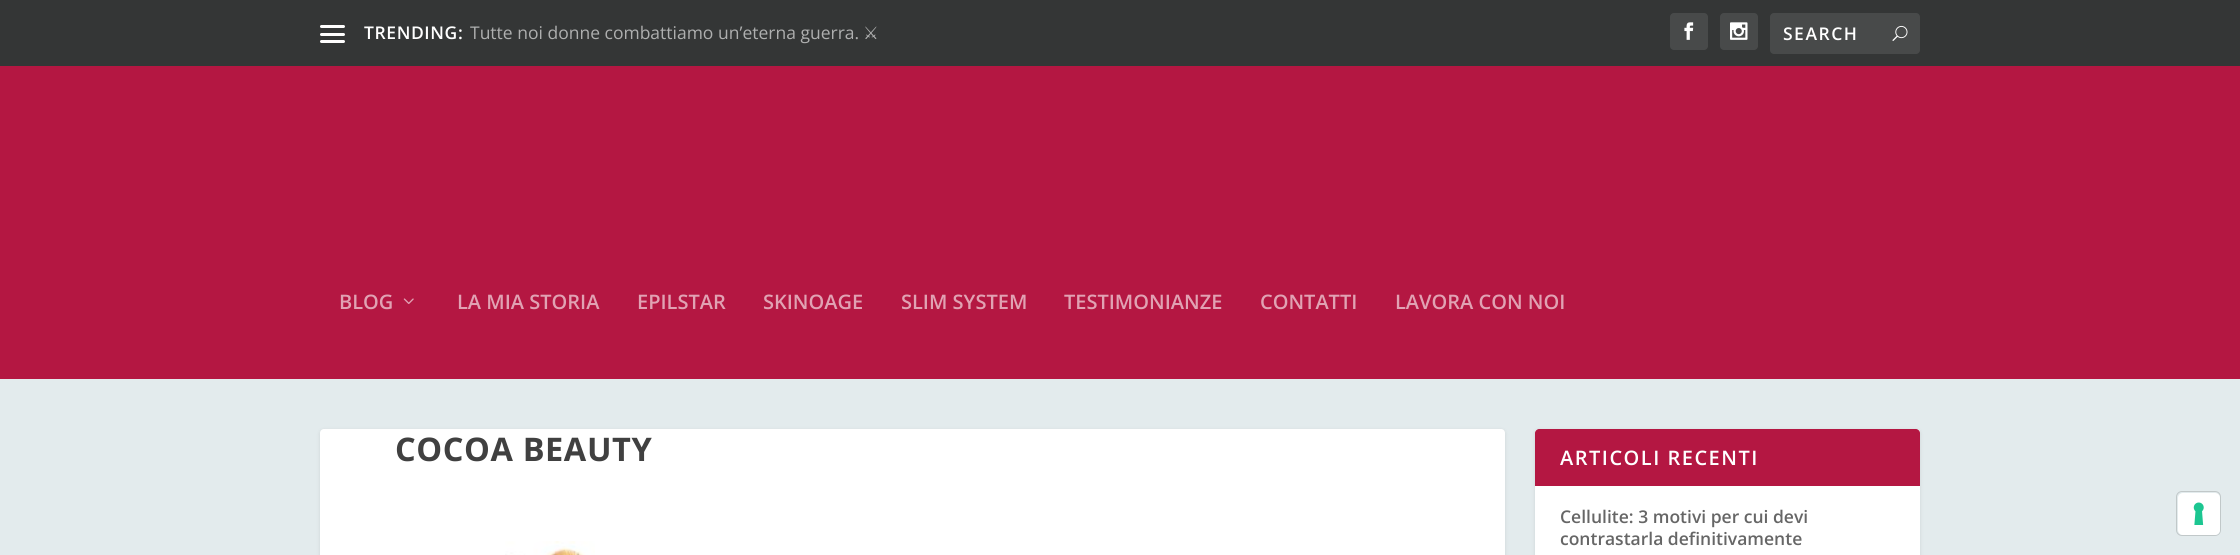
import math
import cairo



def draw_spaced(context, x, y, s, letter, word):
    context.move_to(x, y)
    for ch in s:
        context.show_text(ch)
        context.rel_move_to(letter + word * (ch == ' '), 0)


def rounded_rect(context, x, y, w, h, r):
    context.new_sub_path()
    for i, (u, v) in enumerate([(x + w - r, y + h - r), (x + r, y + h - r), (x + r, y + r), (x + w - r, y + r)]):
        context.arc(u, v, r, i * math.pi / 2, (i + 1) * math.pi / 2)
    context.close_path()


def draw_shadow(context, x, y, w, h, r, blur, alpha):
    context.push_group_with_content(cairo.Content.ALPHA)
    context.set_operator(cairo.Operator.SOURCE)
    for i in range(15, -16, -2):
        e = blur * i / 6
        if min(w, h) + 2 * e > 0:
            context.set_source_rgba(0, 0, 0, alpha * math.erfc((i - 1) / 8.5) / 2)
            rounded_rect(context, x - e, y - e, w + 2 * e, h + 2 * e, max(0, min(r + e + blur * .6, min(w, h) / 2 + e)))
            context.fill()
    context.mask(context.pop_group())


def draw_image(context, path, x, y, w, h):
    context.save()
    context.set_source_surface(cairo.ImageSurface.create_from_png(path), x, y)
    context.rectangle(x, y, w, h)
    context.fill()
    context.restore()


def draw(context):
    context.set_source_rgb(227 / 255, 235 / 255, 237 / 255)
    context.paint()
    context.set_source_rgb(52 / 255, 54 / 255, 54 / 255)
    context.rectangle(0, 0, 2240, 66)
    context.fill()
    context.set_source_rgb(1, 1, 1)
    rounded_rect(context, 320, 25, 25, 3, 1.5)
    context.fill()
    rounded_rect(context, 320, 33, 25, 3, 1.5)
    context.fill()
    rounded_rect(context, 320, 40, 25, 3, 1.5)
    context.fill()
    context.set_source_rgb(72 / 255, 74 / 255, 74 / 255)
    rounded_rect(context, 1670, 13, 38, 37, 4)
    context.fill()
    draw_image(context, "images/1.png", 1684, 22, 10, 18)
    rounded_rect(context, 1720, 13, 38, 37, 4)
    context.fill()
    draw_image(context, "images/2.png", 1730, 22, 18, 18)
    rounded_rect(context, 1770, 13, 150, 41, 4)
    context.fill()
    draw_image(context, "images/3.png", 1892, 25, 16, 16)
    context.set_source_rgb(180 / 255, 23 / 255, 66 / 255)
    context.rectangle(0, 66, 2240, 313)
    context.fill()
    draw_image(context, "images/4.png", 403, 298, 11, 6)
    context.set_source_rgb(0, 0, 0)
    draw_shadow(context, 320, 430, 1185, 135, 4, 2, 0.1)
    context.set_source_rgb(1, 1, 1)
    rounded_rect(context, 320, 429, 1185, 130, 4)
    context.fill()
    draw_image(context, "images/5.png", 505, 541, 90, 14)
    context.set_source_rgb(0, 0, 0)
    draw_shadow(context, 1535, 430, 385, 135, 4, 2, 0.1)
    context.set_source_rgb(1, 1, 1)
    rounded_rect(context, 1535, 429, 385, 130, 4)
    context.fill()
    context.set_source_rgb(180 / 255, 23 / 255, 66 / 255)
    context.new_path()
    context.move_to(1539, 429)
    context.line_to(1916, 429)
    context.curve_to(1918, 429, 1920, 431, 1920, 433)
    context.line_to(1920, 486)
    context.line_to(1535, 486)
    context.line_to(1535, 433)
    context.curve_to(1535, 431, 1537, 429, 1539, 429)
    context.close_path()
    context.fill()
    rounded_rect(context, 2176.5, 491.5, 44, 44, 5.5)
    context.set_source_rgb(193 / 255, 200 / 255, 201 / 255)
    context.set_line_width(1)
    context.stroke()
    context.set_source_rgb(1, 1, 1)
    rounded_rect(context, 2178, 493, 42, 42, 5)
    context.fill()
    draw_image(context, "images/6.png", 2193, 502, 11, 23)
    context.select_font_face("Open Sans SemiBold")
    context.set_font_size(17.5)
    draw_spaced(context, 364, 39, "TRENDING:", 0.6, 0)
    context.select_font_face("Open Sans")
    context.set_source_rgb(174 / 255, 175 / 255, 175 / 255)
    context.move_to(470, 39)
    context.show_text("Tutte noi donne combattiamo un’eterna guerra.")
    context.select_font_face("DejaVu Sans")
    context.move_to(863, 39)
    context.show_text("⚔")
    context.select_font_face("Open Sans SemiBold")
    context.set_source_rgb(1, 1, 1)
    draw_spaced(context, 1783, 40, "SEARCH", 1.5, 0)
    context.set_font_size(20)
    context.set_source_rgb(225 / 255, 162 / 255, 179 / 255)
    context.move_to(339, 309)
    context.show_text("BLOG")
    context.move_to(457, 309)
    context.show_text("LA MIA STORIA")
    context.move_to(637, 309)
    context.show_text("EPILSTAR")
    context.move_to(763, 309)
    context.show_text("SKINOAGE")
    context.move_to(901, 309)
    context.show_text("SLIM SYSTEM")
    context.move_to(1064, 309)
    context.show_text("TESTIMONIANZE")
    context.move_to(1260, 309)
    context.show_text("CONTATTI")
    context.move_to(1395, 309)
    context.show_text("LAVORA CON NOI")
    context.select_font_face("Open Sans", cairo.FontSlant.NORMAL, cairo.FontWeight.BOLD)
    context.set_font_size(32.5)
    context.set_source_rgb(64 / 255, 64 / 255, 64 / 255)
    draw_spaced(context, 395, 461, "COCOA BEAUTY", 0.6, 0)
    context.select_font_face("Open Sans SemiBold")
    context.set_font_size(20)
    context.set_source_rgb(1, 1, 1)
    draw_spaced(context, 1560, 465, "ARTICOLI RECENTI", 1.5, 0)
    context.set_font_size(17.5)
    context.set_source_rgb(102 / 255, 102 / 255, 102 / 255)
    context.move_to(1560, 523)
    context.show_text("Cellulite: 3 motivi per cui devi")
    context.move_to(1560, 545)
    context.show_text("contrastarla definitivamente")


surface = cairo.ImageSurface(cairo.Format.RGB24, 2240, 555)
context = cairo.Context(surface)
options = cairo.FontOptions()
options.set_hint_metrics(cairo.HintMetrics.OFF)
options.set_hint_style(cairo.HintStyle.NONE)
context.set_font_options(options)
context.set_miter_limit(4)
draw(context)
surface.write_to_png("out.png")
